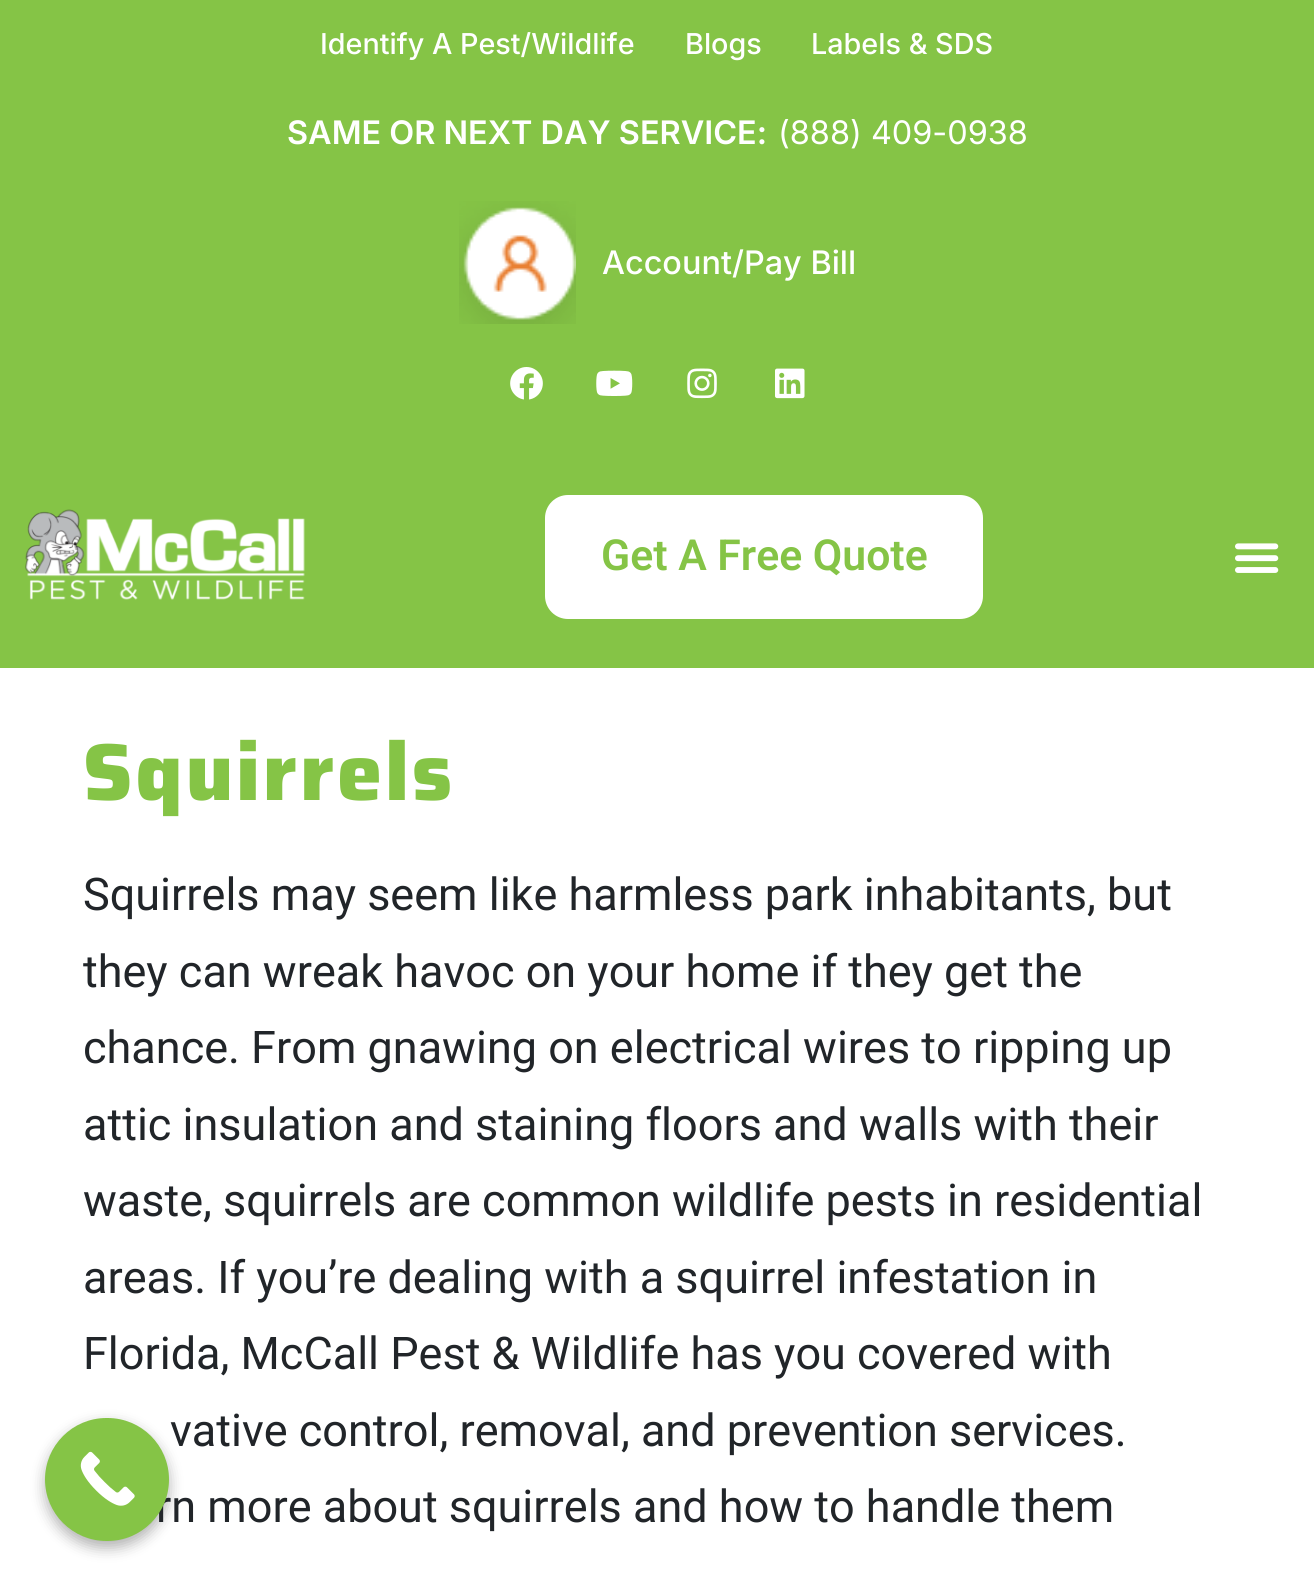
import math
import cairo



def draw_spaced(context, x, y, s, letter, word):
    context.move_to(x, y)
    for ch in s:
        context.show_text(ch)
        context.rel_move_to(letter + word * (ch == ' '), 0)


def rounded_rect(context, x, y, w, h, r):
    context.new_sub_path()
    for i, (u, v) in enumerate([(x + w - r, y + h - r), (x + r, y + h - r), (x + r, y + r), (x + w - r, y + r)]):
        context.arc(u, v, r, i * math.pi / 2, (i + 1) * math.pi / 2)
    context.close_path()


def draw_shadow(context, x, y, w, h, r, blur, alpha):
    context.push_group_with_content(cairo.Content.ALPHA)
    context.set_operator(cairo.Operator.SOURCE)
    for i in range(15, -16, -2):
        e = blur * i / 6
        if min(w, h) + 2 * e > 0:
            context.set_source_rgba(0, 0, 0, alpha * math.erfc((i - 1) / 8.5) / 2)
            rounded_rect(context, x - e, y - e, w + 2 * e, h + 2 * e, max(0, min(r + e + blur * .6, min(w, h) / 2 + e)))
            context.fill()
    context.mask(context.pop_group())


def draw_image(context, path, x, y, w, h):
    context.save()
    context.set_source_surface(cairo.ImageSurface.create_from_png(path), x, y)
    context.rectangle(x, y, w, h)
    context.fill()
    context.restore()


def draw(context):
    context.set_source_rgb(1, 1, 1)
    context.paint()
    context.set_source_rgb(133 / 255, 196 / 255, 70 / 255)
    context.rectangle(0, 0, 1314, 668)
    context.fill()
    draw_image(context, "images/1.png", 459, 201, 117, 123)
    draw_image(context, "images/2.png", 510, 367, 33, 33)
    draw_image(context, "images/3.png", 596, 370, 37, 26)
    draw_image(context, "images/4.png", 687, 368, 30, 31)
    draw_image(context, "images/5.png", 775, 368, 30, 31)
    draw_image(context, "images/6.png", 25, 509, 280, 91)
    context.set_source_rgb(1, 1, 1)
    rounded_rect(context, 545, 495, 438, 124, 23)
    context.fill()
    draw_image(context, "images/7.png", 1235, 543, 44, 30)
    context.set_source_rgb(0, 0, 0)
    draw_shadow(context, 45, 1424, 124, 124, 62, 7, 0.3)
    context.select_font_face("Inter Medium")
    context.set_font_size(28.75)
    context.set_source_rgb(1, 1, 1)
    context.move_to(320, 54)
    context.show_text("Identify A Pest/Wildlife")
    context.move_to(685, 54)
    context.show_text("Blogs")
    context.move_to(811, 54)
    context.show_text("Labels & SDS")
    context.select_font_face("Inter SemiBold")
    context.set_font_size(32.4)
    context.move_to(287, 144)
    context.show_text("SAME OR NEXT DAY SERVICE:")
    context.select_font_face("Inter")
    context.move_to(778, 144)
    context.show_text("(888) 409-0938")
    context.select_font_face("Inter Medium")
    context.move_to(602, 274)
    context.show_text("Account/Pay Bill")
    context.select_font_face("Roboto SemiBold")
    context.set_font_size(42.75)
    context.set_source_rgb(133 / 255, 196 / 255, 70 / 255)
    context.move_to(601, 570)
    context.show_text("Get A Free Quote")
    context.select_font_face("Saira ExtraBold")
    context.set_font_size(81)
    draw_spaced(context, 83, 800, "Squirrels", 2.75, 0)
    context.select_font_face("Roboto")
    context.set_font_size(45)
    context.set_source_rgb(33 / 255, 37 / 255, 41 / 255)
    context.move_to(83, 910)
    context.show_text("Squirrels may seem like harmless park inhabitants, but")
    context.move_to(83, 987)
    context.show_text("they can wreak havoc on your home if they get the")
    context.move_to(83, 1063)
    context.show_text("chance. From gnawing on electrical wires to ripping up")
    context.move_to(83, 1140)
    context.show_text("attic insulation and staining floors and walls with their")
    context.move_to(83, 1216)
    context.show_text("waste, squirrels are common wildlife pests in residential")
    context.move_to(83, 1293)
    context.show_text("areas. If you’re dealing with a squirrel infestation in")
    context.move_to(83, 1369)
    context.show_text("Florida, McCall Pest & Wildlife has you covered with")
    context.move_to(170, 1446)
    context.show_text("vative control, removal, and prevention services.")
    context.move_to(156, 1522)
    context.show_text("rn more about squirrels and how to handle them")
    context.set_source_rgb(133 / 255, 196 / 255, 70 / 255)
    rounded_rect(context, 45, 1418, 124, 123, 61.5)
    context.fill()
    draw_image(context, "images/8.png", 80, 1451, 55, 55)


surface = cairo.ImageSurface(cairo.Format.RGB24, 1314, 1574)
context = cairo.Context(surface)
options = cairo.FontOptions()
options.set_hint_metrics(cairo.HintMetrics.OFF)
options.set_hint_style(cairo.HintStyle.NONE)
context.set_font_options(options)
context.set_miter_limit(4)
draw(context)
surface.write_to_png("out.png")
